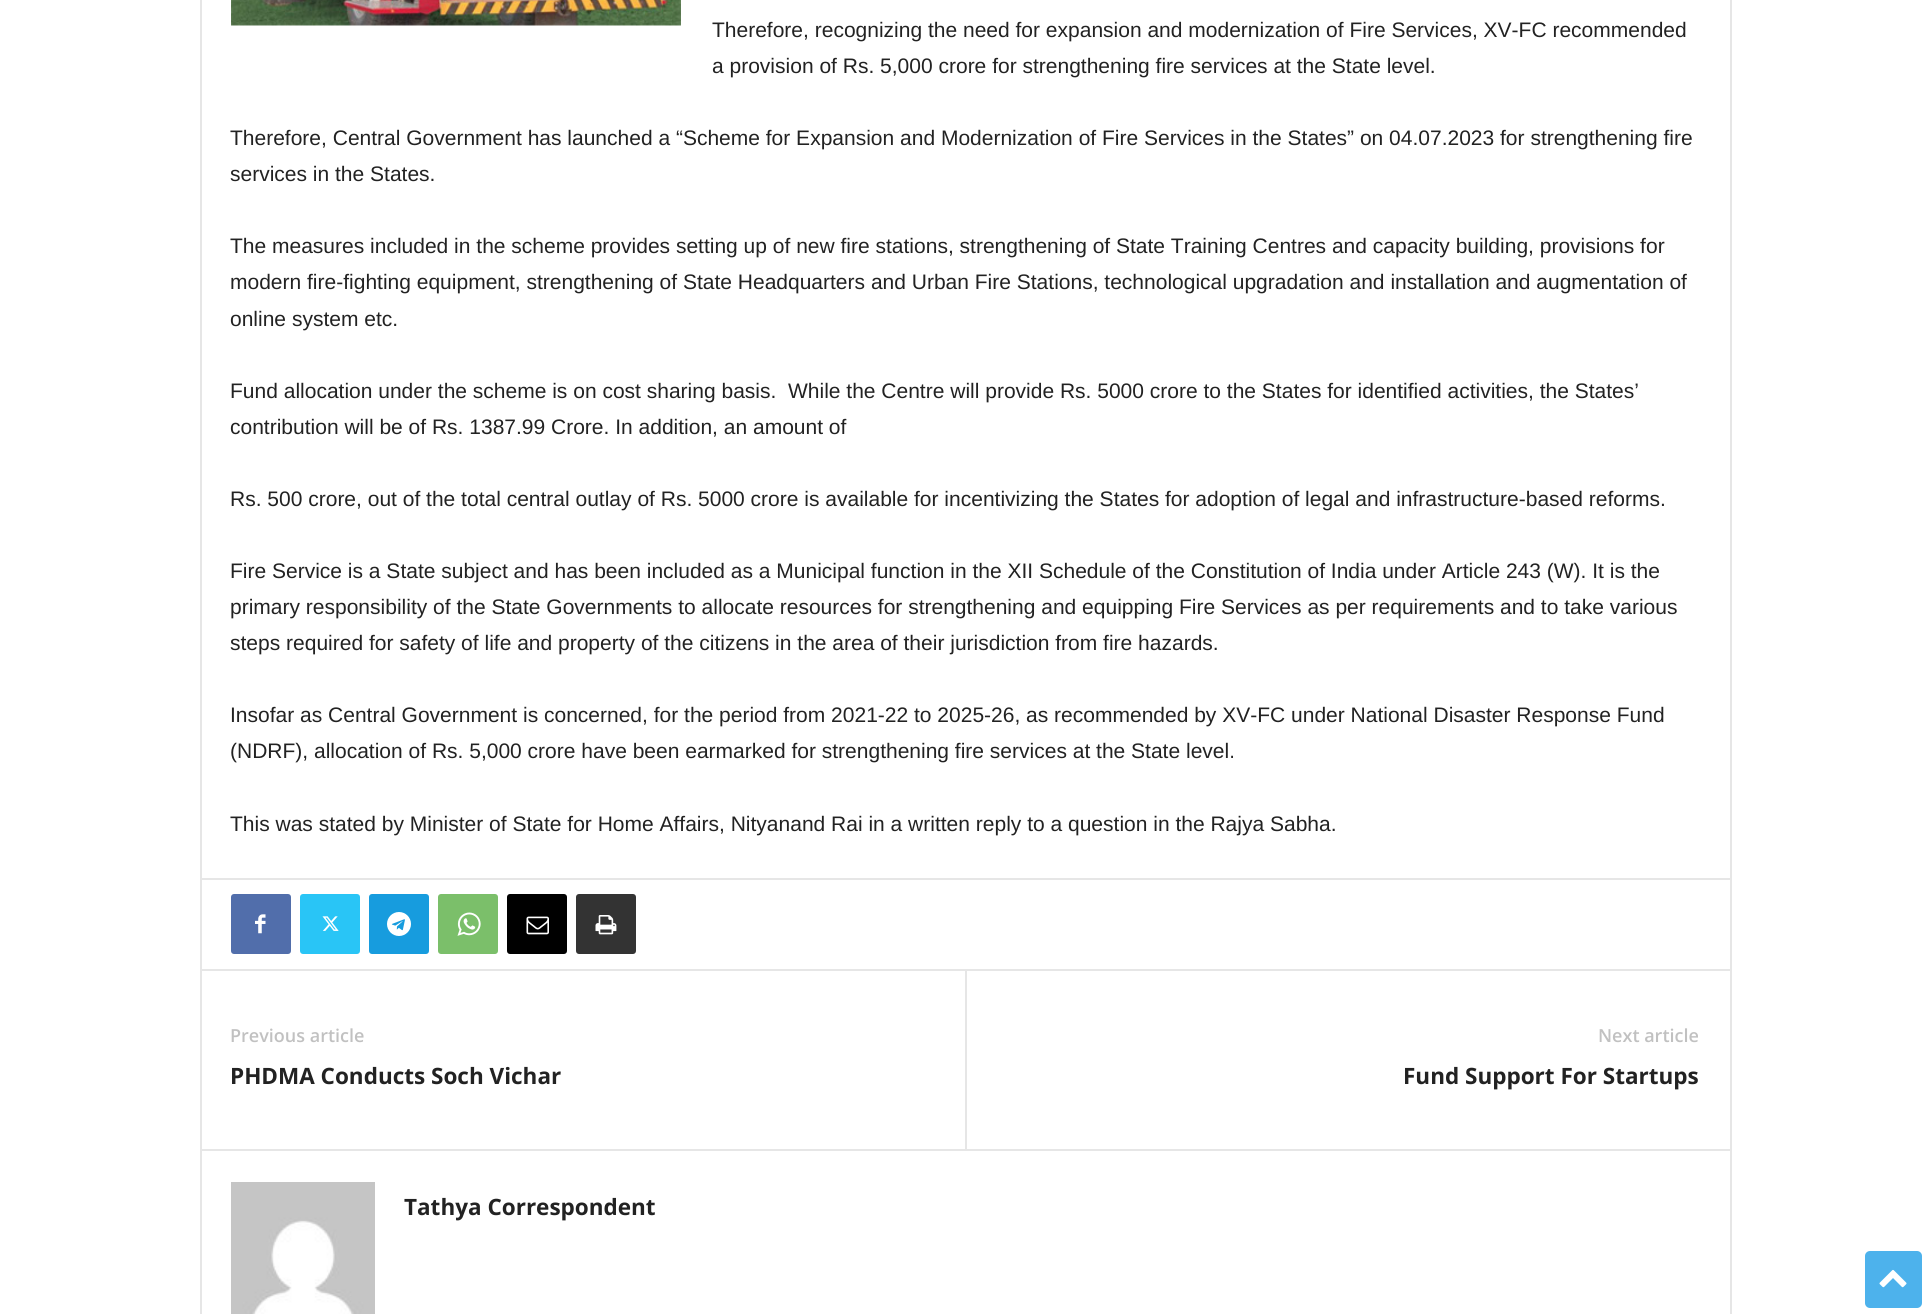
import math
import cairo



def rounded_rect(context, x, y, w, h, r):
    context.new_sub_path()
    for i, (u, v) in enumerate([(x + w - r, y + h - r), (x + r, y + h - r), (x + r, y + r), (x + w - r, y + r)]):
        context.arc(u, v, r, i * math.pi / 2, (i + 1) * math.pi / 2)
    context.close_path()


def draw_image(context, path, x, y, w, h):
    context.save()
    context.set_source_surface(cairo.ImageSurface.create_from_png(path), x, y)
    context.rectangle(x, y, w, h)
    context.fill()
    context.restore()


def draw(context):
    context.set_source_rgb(1, 1, 1)
    context.paint()
    context.set_source_rgb(230 / 255, 230 / 255, 230 / 255)
    context.rectangle(200, 0, 2, 1314)
    context.fill()
    draw_image(context, "images/1.png", 231, 0, 450, 26)
    context.rectangle(201, 878, 1529, 2)
    context.fill()
    context.set_source_rgb(81 / 255, 110 / 255, 171 / 255)
    rounded_rect(context, 231, 894, 60, 60, 3)
    context.fill()
    draw_image(context, "images/2.png", 255, 914, 11, 20)
    context.set_source_rgb(41 / 255, 197 / 255, 246 / 255)
    rounded_rect(context, 300, 894, 60, 60, 3)
    context.fill()
    draw_image(context, "images/3.png", 322, 916, 17, 15)
    context.set_source_rgb(23 / 255, 156 / 255, 222 / 255)
    rounded_rect(context, 369, 894, 60, 60, 3)
    context.fill()
    draw_image(context, "images/4.png", 387, 912, 24, 24)
    context.set_source_rgb(123 / 255, 191 / 255, 106 / 255)
    rounded_rect(context, 438, 894, 60, 60, 3)
    context.fill()
    draw_image(context, "images/5.png", 457, 912, 24, 24)
    context.set_source_rgb(0, 0, 0)
    rounded_rect(context, 507, 894, 60, 60, 3)
    context.fill()
    draw_image(context, "images/6.png", 526, 916, 23, 19)
    context.set_source_rgb(51 / 255, 51 / 255, 51 / 255)
    rounded_rect(context, 576, 894, 60, 60, 3)
    context.fill()
    draw_image(context, "images/7.png", 595, 915, 22, 20)
    context.set_source_rgb(230 / 255, 230 / 255, 230 / 255)
    context.rectangle(201, 969, 1529, 2)
    context.fill()
    context.rectangle(965, 971, 2, 178)
    context.fill()
    context.rectangle(201, 1149, 1529, 2)
    context.fill()
    draw_image(context, "images/8.png", 231, 1182, 144, 132)
    context.rectangle(1730, 0, 2, 1314)
    context.fill()
    context.set_source_rgb(77 / 255, 178 / 255, 236 / 255)
    rounded_rect(context, 1865, 1251, 57, 57, 5)
    context.fill()
    draw_image(context, "images/9.png", 1879, 1269, 28, 19)
    context.select_font_face("Liberation Sans")
    context.set_font_size(21)
    context.set_source_rgb(34 / 255, 34 / 255, 34 / 255)
    context.move_to(712, 37)
    context.show_text("Therefore, recognizing the need for expansion and modernization of Fire Services, XV-FC recommended")
    context.move_to(712, 73)
    context.show_text("a provision of Rs. 5,000 crore for strengthening fire services at the State level.")
    context.move_to(230, 145)
    context.show_text("Therefore, Central Government has launched a “Scheme for Expansion and Modernization of Fire Services in the States” on 04.07.2023 for strengthening fire")
    context.move_to(230, 181)
    context.show_text("services in the States.")
    context.move_to(230, 253)
    context.show_text("The measures included in the scheme provides setting up of new fire stations, strengthening of State Training Centres and capacity building, provisions for")
    context.move_to(230, 289)
    context.show_text("modern fire-fighting equipment, strengthening of State Headquarters and Urban Fire Stations, technological upgradation and installation and augmentation of")
    context.move_to(230, 326)
    context.show_text("online system etc.")
    context.move_to(230, 398)
    context.show_text("Fund allocation under the scheme is on cost sharing basis.  While the Centre will provide Rs. 5000 crore to the States for identified activities, the States’")
    context.move_to(230, 434)
    context.show_text("contribution will be of Rs. 1387.99 Crore. In addition, an amount of")
    context.move_to(230, 506)
    context.show_text("Rs. 500 crore, out of the total central outlay of Rs. 5000 crore is available for incentivizing the States for adoption of legal and infrastructure-based reforms.")
    context.move_to(230, 578)
    context.show_text("Fire Service is a State subject and has been included as a Municipal function in the XII Schedule of the Constitution of India under Article 243 (W). It is the")
    context.move_to(230, 614)
    context.show_text("primary responsibility of the State Governments to allocate resources for strengthening and equipping Fire Services as per requirements and to take various")
    context.move_to(230, 650)
    context.show_text("steps required for safety of life and property of the citizens in the area of their jurisdiction from fire hazards.")
    context.move_to(230, 722)
    context.show_text("Insofar as Central Government is concerned, for the period from 2021-22 to 2025-26, as recommended by XV-FC under National Disaster Response Fund")
    context.move_to(230, 758)
    context.show_text("(NDRF), allocation of Rs. 5,000 crore have been earmarked for strengthening fire services at the State level.")
    context.move_to(230, 831)
    context.show_text("This was stated by Minister of State for Home Affairs, Nityanand Rai in a written reply to a question in the Rajya Sabha.")
    context.select_font_face("Open Sans SemiBold")
    context.set_font_size(18)
    context.set_source_rgb(193 / 255, 193 / 255, 193 / 255)
    context.move_to(230, 1042)
    context.show_text("Previous article")
    context.select_font_face("Open Sans", cairo.FontSlant.NORMAL, cairo.FontWeight.BOLD)
    context.set_font_size(22.5)
    context.set_source_rgb(34 / 255, 34 / 255, 34 / 255)
    context.move_to(230, 1084)
    context.show_text("PHDMA Conducts Soch Vichar")
    context.select_font_face("Open Sans SemiBold")
    context.set_font_size(18)
    context.set_source_rgb(193 / 255, 193 / 255, 193 / 255)
    context.move_to(1598, 1042)
    context.show_text("Next article")
    context.select_font_face("Open Sans", cairo.FontSlant.NORMAL, cairo.FontWeight.BOLD)
    context.set_font_size(22.5)
    context.set_source_rgb(34 / 255, 34 / 255, 34 / 255)
    context.move_to(1403, 1084)
    context.show_text("Fund Support For Startups")
    context.move_to(404, 1215)
    context.show_text("Tathya Correspondent")


surface = cairo.ImageSurface(cairo.Format.RGB24, 1928, 1314)
context = cairo.Context(surface)
options = cairo.FontOptions()
options.set_hint_metrics(cairo.HintMetrics.OFF)
options.set_hint_style(cairo.HintStyle.NONE)
context.set_font_options(options)
context.set_miter_limit(4)
draw(context)
surface.write_to_png("out.png")
